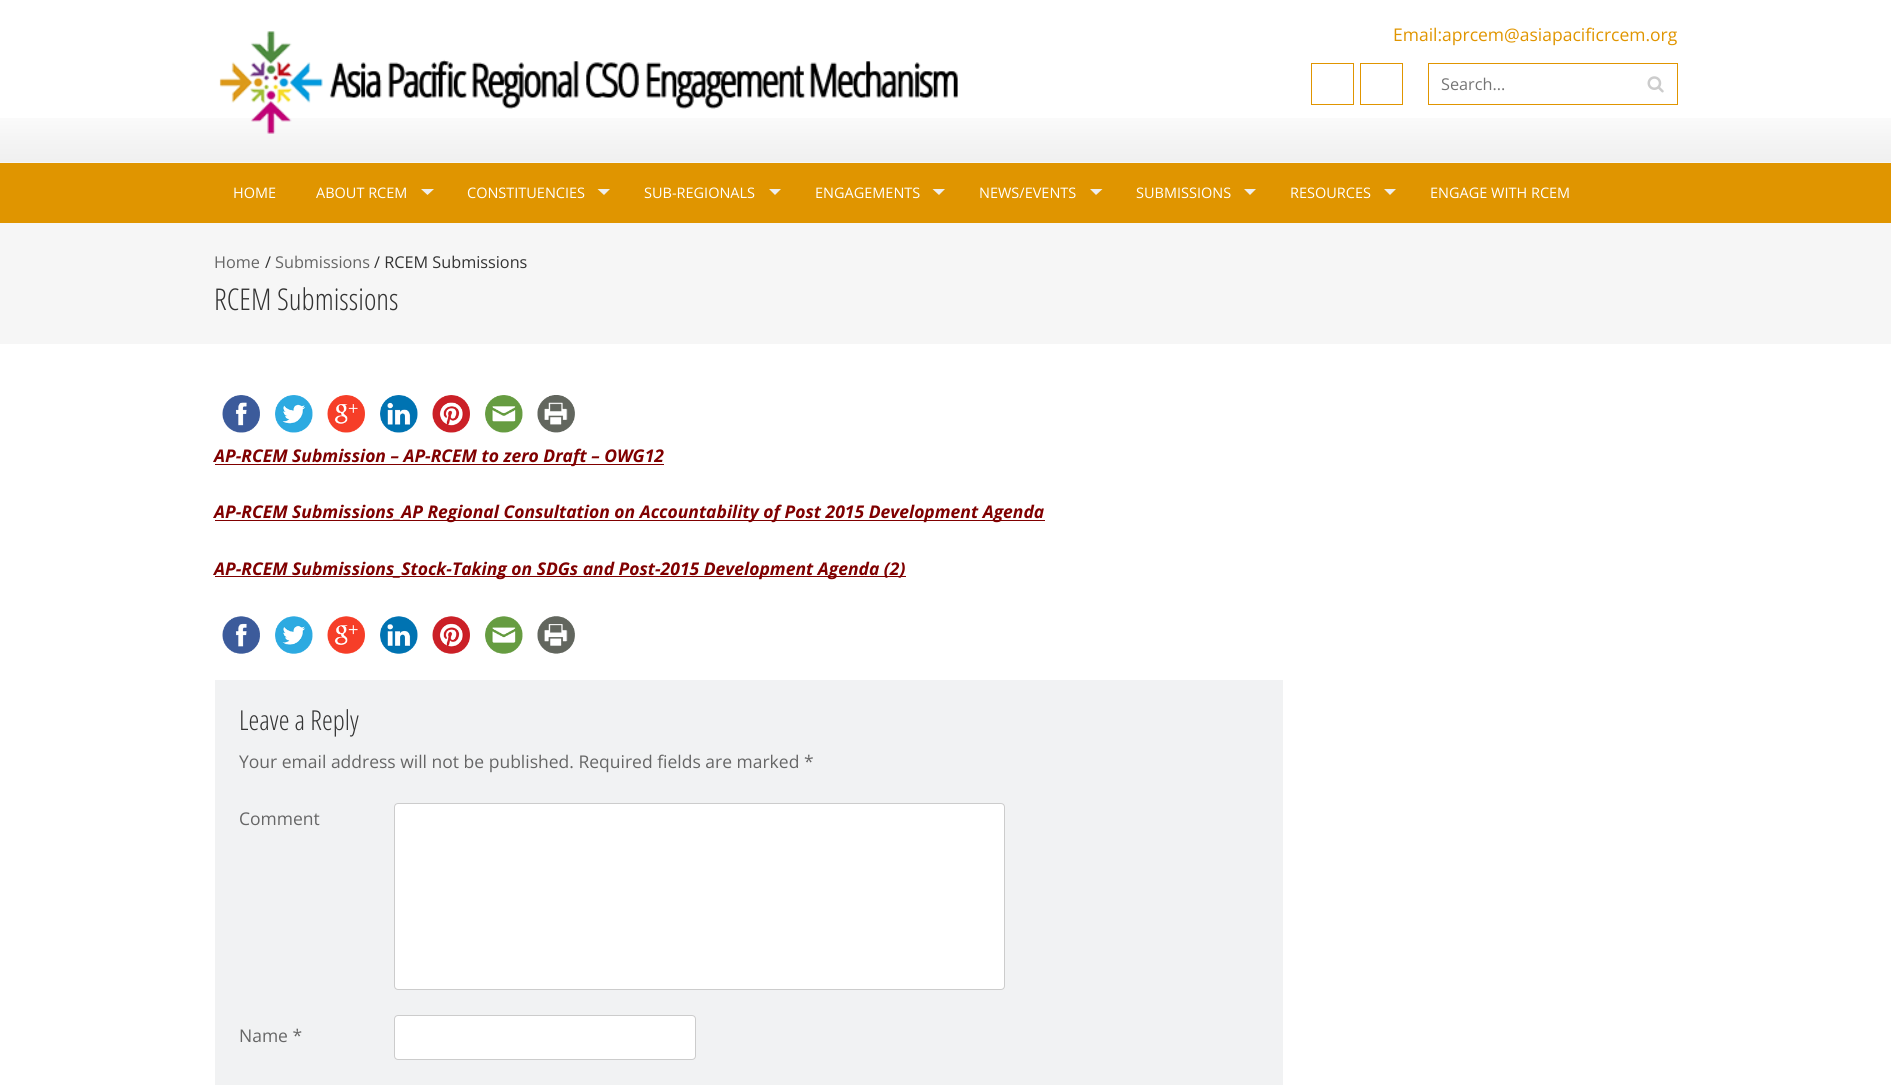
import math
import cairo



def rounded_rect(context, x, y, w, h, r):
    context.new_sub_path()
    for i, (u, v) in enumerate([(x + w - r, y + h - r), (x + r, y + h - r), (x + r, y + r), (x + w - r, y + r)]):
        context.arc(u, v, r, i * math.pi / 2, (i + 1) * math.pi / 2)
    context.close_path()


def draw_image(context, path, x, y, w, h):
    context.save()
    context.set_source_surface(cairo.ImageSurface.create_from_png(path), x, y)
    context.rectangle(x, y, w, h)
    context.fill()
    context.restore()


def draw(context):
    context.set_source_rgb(1, 1, 1)
    context.paint()
    draw_image(context, "images/1.png", 0, 118, 1891, 45)
    draw_image(context, "images/2.png", 219, 31, 739, 103)
    context.rectangle(1311.5, 63.5, 42, 41)
    context.set_source_rgb(224 / 255, 149 / 255, 0)
    context.set_line_width(1)
    context.stroke()
    context.rectangle(1360.5, 63.5, 42, 41)
    context.stroke()
    context.rectangle(1428.5, 63.5, 249, 41)
    context.stroke()
    draw_image(context, "images/3.png", 1647, 76, 17, 17)
    context.rectangle(0, 163, 1891, 60)
    context.fill()
    context.set_source_rgb(238 / 255, 238 / 255, 238 / 255)
    context.new_path()
    context.move_to(421, 189)
    context.line_to(434, 189)
    context.line_to(427.5, 195)
    context.close_path()
    context.fill()
    context.new_path()
    context.move_to(597.5, 189)
    context.line_to(610, 189)
    context.line_to(604, 195)
    context.close_path()
    context.fill()
    context.new_path()
    context.move_to(769, 189)
    context.line_to(781, 189)
    context.line_to(775, 195)
    context.close_path()
    context.fill()
    context.new_path()
    context.move_to(932.5, 189)
    context.line_to(945, 189)
    context.line_to(939, 195)
    context.close_path()
    context.fill()
    context.new_path()
    context.move_to(1090, 189)
    context.line_to(1102.5, 189)
    context.line_to(1096, 195)
    context.close_path()
    context.fill()
    context.new_path()
    context.move_to(1244, 189)
    context.line_to(1256, 189)
    context.line_to(1250, 195)
    context.close_path()
    context.fill()
    context.new_path()
    context.move_to(1384, 189)
    context.line_to(1396, 189)
    context.line_to(1390, 195)
    context.close_path()
    context.fill()
    context.set_source_rgb(246 / 255, 246 / 255, 246 / 255)
    context.rectangle(0, 223, 1891, 121)
    context.fill()
    draw_image(context, "images/4.png", 222, 395, 38, 38)
    draw_image(context, "images/5.png", 275, 395, 38, 38)
    draw_image(context, "images/6.png", 327, 395, 38, 38)
    draw_image(context, "images/7.png", 380, 395, 38, 38)
    draw_image(context, "images/8.png", 432, 395, 38, 38)
    draw_image(context, "images/9.png", 485, 395, 38, 38)
    draw_image(context, "images/10.png", 537, 395, 38, 38)
    context.set_source_rgb(128 / 255, 0, 0)
    context.rectangle(215, 464, 449, 1)
    context.fill()
    context.rectangle(215, 520, 830, 1)
    context.fill()
    context.rectangle(215, 576, 691, 1)
    context.fill()
    draw_image(context, "images/11.png", 222, 616, 38, 38)
    draw_image(context, "images/12.png", 275, 616, 38, 38)
    draw_image(context, "images/13.png", 327, 616, 38, 38)
    draw_image(context, "images/14.png", 380, 616, 38, 38)
    draw_image(context, "images/15.png", 432, 616, 38, 38)
    draw_image(context, "images/16.png", 485, 616, 38, 38)
    draw_image(context, "images/17.png", 537, 616, 38, 38)
    context.set_source_rgb(241 / 255, 242 / 255, 243 / 255)
    context.rectangle(215, 680, 1068, 405)
    context.fill()
    context.set_source_rgb(1, 1, 1)
    rounded_rect(context, 394.5, 803.5, 610, 186, 3.5)
    context.fill_preserve()
    context.set_source_rgb(204 / 255, 204 / 255, 204 / 255)
    context.stroke()
    context.set_source_rgb(1, 1, 1)
    rounded_rect(context, 394.5, 1015.5, 301, 44, 3.5)
    context.fill_preserve()
    context.set_source_rgb(204 / 255, 204 / 255, 204 / 255)
    context.stroke()
    context.select_font_face("Open Sans")
    context.set_font_size(17.5)
    context.set_source_rgb(224 / 255, 149 / 255, 0)
    context.move_to(1393, 41)
    context.show_text("Email:aprcem@asiapacificrcem.org")
    context.set_font_size(16.25)
    context.set_source_rgb(117 / 255, 117 / 255, 117 / 255)
    context.move_to(1441, 90)
    context.show_text("Search...")
    context.set_font_size(14.5)
    context.set_source_rgb(1, 1, 1)
    context.move_to(233, 198)
    context.show_text("HOME")
    context.move_to(316, 198)
    context.show_text("ABOUT RCEM")
    context.move_to(467, 198)
    context.show_text("CONSTITUENCIES")
    context.move_to(644, 198)
    context.show_text("SUB-REGIONALS")
    context.move_to(815, 198)
    context.show_text("ENGAGEMENTS")
    context.move_to(979, 198)
    context.show_text("NEWS/EVENTS")
    context.move_to(1136, 198)
    context.show_text("SUBMISSIONS")
    context.move_to(1290, 198)
    context.show_text("RESOURCES")
    context.move_to(1430, 198)
    context.show_text("ENGAGE WITH RCEM")
    context.set_font_size(16.25)
    context.set_source_rgb(102 / 255, 102 / 255, 102 / 255)
    context.move_to(214, 268)
    context.show_text("Home")
    context.set_source_rgb(51 / 255, 51 / 255, 51 / 255)
    context.move_to(265, 268)
    context.show_text("/")
    context.set_source_rgb(102 / 255, 102 / 255, 102 / 255)
    context.move_to(275, 268)
    context.show_text("Submissions")
    context.set_source_rgb(51 / 255, 51 / 255, 51 / 255)
    context.move_to(374, 268)
    context.show_text("/ RCEM Submissions")
    context.select_font_face("Open Sans Condensed Light")
    context.set_font_size(30)
    context.move_to(214, 310)
    context.show_text("RCEM Submissions")
    context.select_font_face("Open Sans", cairo.FontSlant.ITALIC, cairo.FontWeight.BOLD)
    context.set_font_size(17.5)
    context.set_source_rgb(128 / 255, 0, 0)
    context.move_to(214, 462)
    context.show_text("AP-RCEM Submission – AP-RCEM to zero Draft – OWG12")
    context.move_to(214, 518)
    context.show_text("AP-RCEM Submissions_AP Regional Consultation on Accountability of Post 2015 Development Agenda")
    context.move_to(214, 575)
    context.show_text("AP-RCEM Submissions_Stock-Taking on SDGs and Post-2015 Development Agenda (2)")
    context.select_font_face("Open Sans Condensed Light")
    context.set_font_size(27.5)
    context.set_source_rgb(51 / 255, 51 / 255, 51 / 255)
    context.move_to(239, 730)
    context.show_text("Leave a Reply")
    context.select_font_face("Open Sans")
    context.set_font_size(17.5)
    context.set_source_rgb(102 / 255, 102 / 255, 102 / 255)
    context.move_to(239, 768)
    context.show_text("Your email address will not be published. Required fields are marked *")
    context.move_to(239, 825)
    context.show_text("Comment")
    context.move_to(239, 1042)
    context.show_text("Name *")


surface = cairo.ImageSurface(cairo.Format.RGB24, 1891, 1085)
context = cairo.Context(surface)
options = cairo.FontOptions()
options.set_hint_metrics(cairo.HintMetrics.OFF)
options.set_hint_style(cairo.HintStyle.NONE)
context.set_font_options(options)
context.set_miter_limit(4)
draw(context)
surface.write_to_png("out.png")
